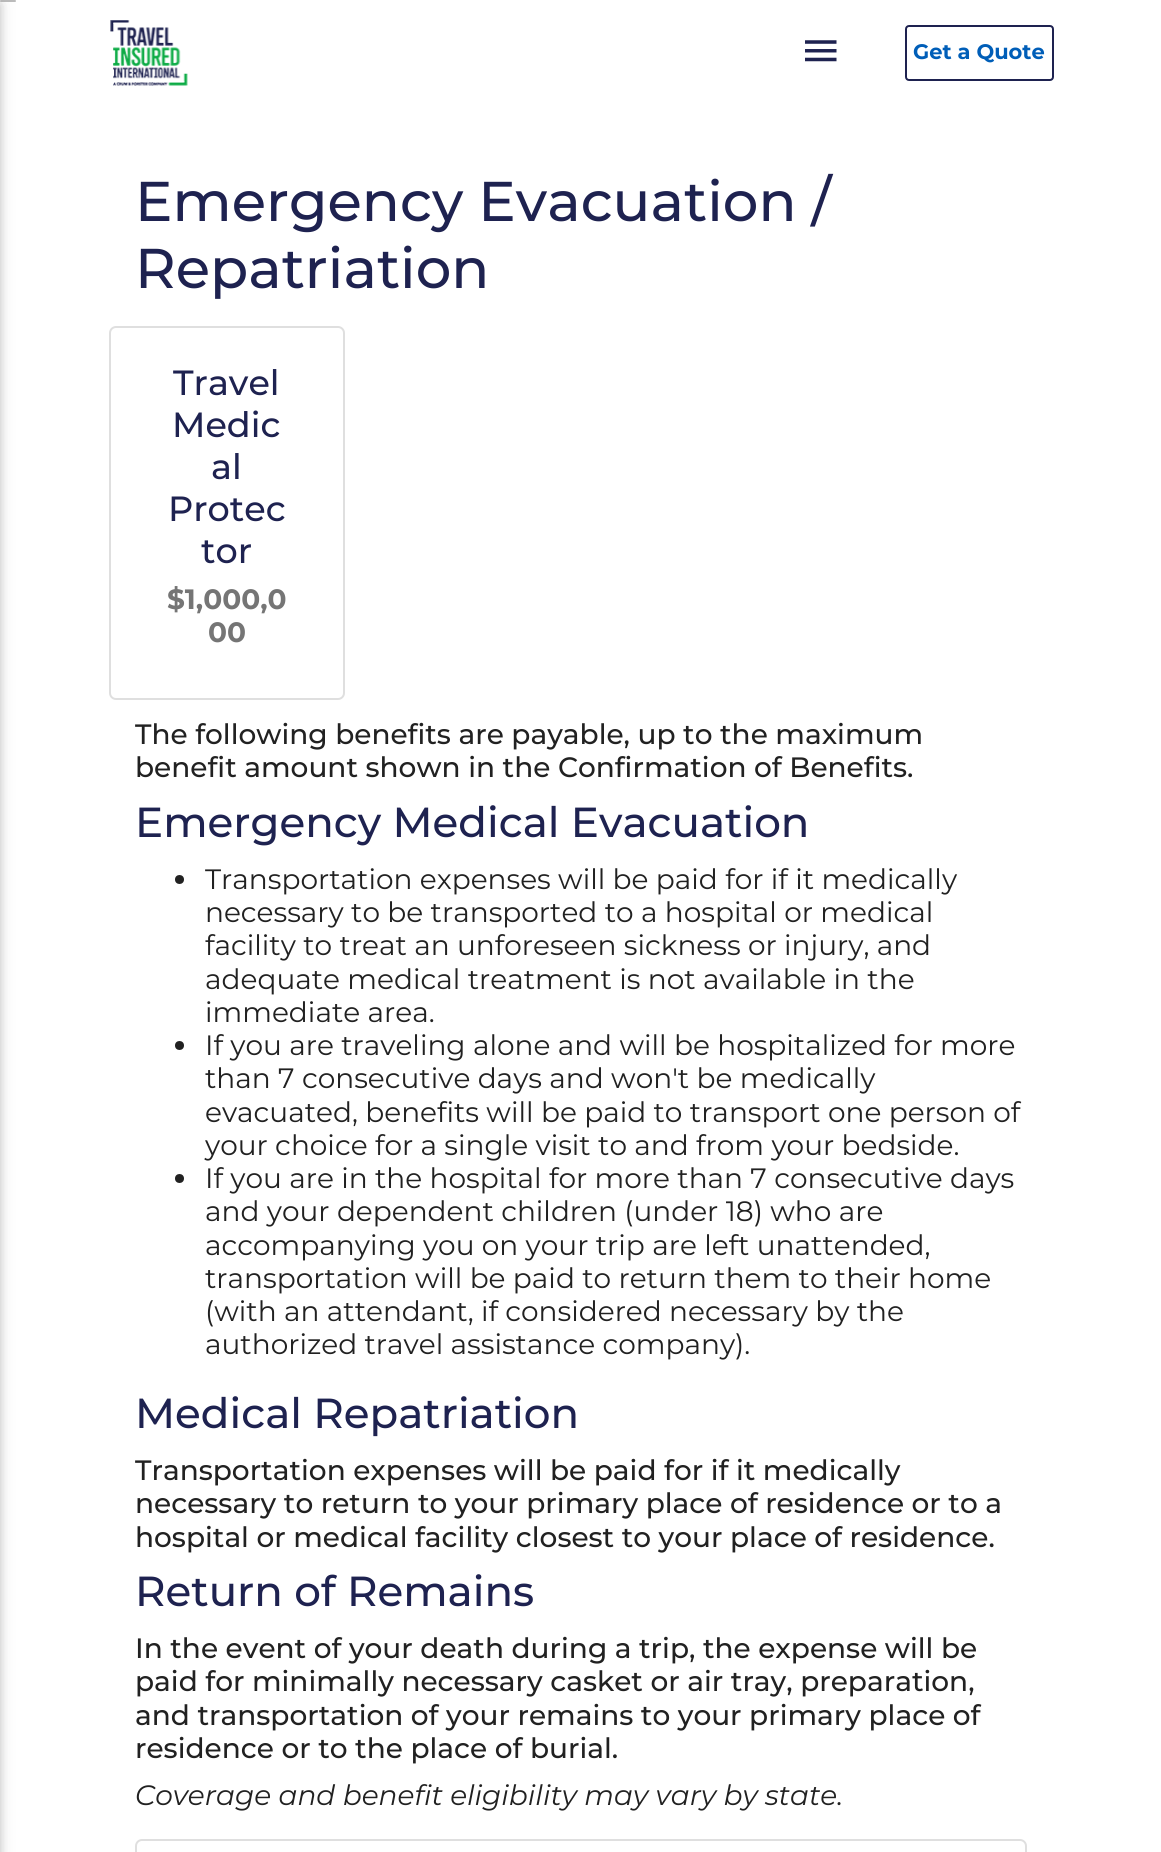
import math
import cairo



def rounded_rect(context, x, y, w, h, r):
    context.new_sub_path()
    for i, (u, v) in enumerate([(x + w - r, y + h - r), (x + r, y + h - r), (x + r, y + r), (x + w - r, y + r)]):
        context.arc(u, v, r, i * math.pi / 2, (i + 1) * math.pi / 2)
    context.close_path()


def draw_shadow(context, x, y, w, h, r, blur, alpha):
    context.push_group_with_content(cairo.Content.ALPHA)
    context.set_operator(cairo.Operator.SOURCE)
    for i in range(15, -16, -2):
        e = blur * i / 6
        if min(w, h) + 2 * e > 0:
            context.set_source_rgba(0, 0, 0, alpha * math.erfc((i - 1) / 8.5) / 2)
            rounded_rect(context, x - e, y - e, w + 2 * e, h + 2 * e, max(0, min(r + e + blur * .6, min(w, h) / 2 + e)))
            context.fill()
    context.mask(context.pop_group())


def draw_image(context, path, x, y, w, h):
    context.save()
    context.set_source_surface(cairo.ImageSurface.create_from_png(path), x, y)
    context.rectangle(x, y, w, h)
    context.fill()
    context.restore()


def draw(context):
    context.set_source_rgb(1, 1, 1)
    context.paint()
    context.set_source_rgb(0, 0, 0)
    draw_shadow(context, -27, 4, 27, 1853, 0, 9, 0.12)
    draw_shadow(context, -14, 4, 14, 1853, 0, 4.5, 0.16)
    context.set_source_rgba(158 / 255, 158 / 255, 158 / 255, 0.7)
    rounded_rect(context, 0, 0, 16, 2, 1)
    context.fill()
    draw_image(context, "images/1.png", 110, 20, 78, 66)
    draw_image(context, "images/2.png", 805, 40, 32, 22)
    rounded_rect(context, 906, 26, 147, 54, 3)
    context.set_source_rgb(30 / 255, 34 / 255, 80 / 255)
    context.stroke()
    rounded_rect(context, 110, 327, 234, 372, 6)
    context.set_source_rgb(223 / 255, 223 / 255, 223 / 255)
    context.stroke()
    context.set_source_rgb(33 / 255, 33 / 255, 33 / 255)
    context.arc(179.5, 879.5, 4.5, 0, 2 * math.pi)
    context.fill()
    context.arc(179.5, 1045.5, 4.5, 0, 2 * math.pi)
    context.fill()
    context.arc(179.5, 1178.5, 4.5, 0, 2 * math.pi)
    context.fill()
    rounded_rect(context, 136, 1840, 890, 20, 6)
    context.set_source_rgb(223 / 255, 223 / 255, 223 / 255)
    context.stroke()
    context.select_font_face("Montserrat", cairo.FontSlant.NORMAL, cairo.FontWeight.BOLD)
    context.set_font_size(21)
    context.set_source_rgb(0, 94 / 255, 184 / 255)
    context.move_to(913, 59)
    context.show_text("Get a Quote")
    context.select_font_face("Montserrat Medium")
    context.set_font_size(56)
    context.set_source_rgb(30 / 255, 34 / 255, 80 / 255)
    context.move_to(135, 221)
    context.show_text("Emergency Evacuation /")
    context.move_to(135, 288)
    context.show_text("Repatriation")
    context.set_font_size(35)
    context.move_to(173, 395)
    context.show_text("Travel")
    context.move_to(172, 437)
    context.show_text("Medic")
    context.move_to(211, 479)
    context.show_text("al")
    context.move_to(168, 521)
    context.show_text("Protec")
    context.move_to(201, 563)
    context.show_text("tor")
    context.select_font_face("Montserrat", cairo.FontSlant.NORMAL, cairo.FontWeight.BOLD)
    context.set_font_size(28)
    context.set_source_rgb(117 / 255, 117 / 255, 117 / 255)
    context.move_to(167, 609)
    context.show_text("$1,000,0")
    context.move_to(208, 642)
    context.show_text("00")
    context.select_font_face("Montserrat Medium")
    context.set_source_rgb(33 / 255, 33 / 255, 33 / 255)
    context.move_to(135, 744)
    context.show_text("The following benefits are payable, up to the maximum")
    context.move_to(135, 777)
    context.show_text("benefit amount shown in the Confirmation of Benefits.")
    context.set_font_size(42)
    context.set_source_rgb(30 / 255, 34 / 255, 80 / 255)
    context.move_to(135, 837)
    context.show_text("Emergency Medical Evacuation")
    context.select_font_face("Montserrat")
    context.set_font_size(28)
    context.set_source_rgb(33 / 255, 33 / 255, 33 / 255)
    context.move_to(205, 889)
    context.show_text("Transportation expenses will be paid for if it medically")
    context.move_to(205, 922)
    context.show_text("necessary to be transported to a hospital or medical")
    context.move_to(205, 955)
    context.show_text("facility to treat an unforeseen sickness or injury, and")
    context.move_to(205, 989)
    context.show_text("adequate medical treatment is not available in the")
    context.move_to(205, 1022)
    context.show_text("immediate area.")
    context.move_to(205, 1055)
    context.show_text("If you are traveling alone and will be hospitalized for more")
    context.move_to(205, 1088)
    context.show_text("than 7 consecutive days and won't be medically")
    context.move_to(205, 1122)
    context.show_text("evacuated, benefits will be paid to transport one person of")
    context.move_to(205, 1155)
    context.show_text("your choice for a single visit to and from your bedside.")
    context.move_to(205, 1188)
    context.show_text("If you are in the hospital for more than 7 consecutive days")
    context.move_to(205, 1221)
    context.show_text("and your dependent children (under 18) who are")
    context.move_to(205, 1255)
    context.show_text("accompanying you on your trip are left unattended,")
    context.move_to(205, 1288)
    context.show_text("transportation will be paid to return them to their home")
    context.move_to(205, 1321)
    context.show_text("(with an attendant, if considered necessary by the")
    context.move_to(205, 1354)
    context.show_text("authorized travel assistance company).")
    context.select_font_face("Montserrat Medium")
    context.set_font_size(42)
    context.set_source_rgb(30 / 255, 34 / 255, 80 / 255)
    context.move_to(135, 1428)
    context.show_text("Medical Repatriation")
    context.set_font_size(28)
    context.set_source_rgb(33 / 255, 33 / 255, 33 / 255)
    context.move_to(135, 1480)
    context.show_text("Transportation expenses will be paid for if it medically")
    context.move_to(135, 1513)
    context.show_text("necessary to return to your primary place of residence or to a")
    context.move_to(135, 1547)
    context.show_text("hospital or medical facility closest to your place of residence.")
    context.set_font_size(42)
    context.set_source_rgb(30 / 255, 34 / 255, 80 / 255)
    context.move_to(135, 1606)
    context.show_text("Return of Remains")
    context.set_font_size(28)
    context.set_source_rgb(33 / 255, 33 / 255, 33 / 255)
    context.move_to(135, 1658)
    context.show_text("In the event of your death during a trip, the expense will be")
    context.move_to(135, 1691)
    context.show_text("paid for minimally necessary casket or air tray, preparation,")
    context.move_to(135, 1725)
    context.show_text("and transportation of your remains to your primary place of")
    context.move_to(135, 1758)
    context.show_text("residence or to the place of burial.")
    context.select_font_face("Montserrat", cairo.FontSlant.ITALIC)
    context.move_to(135, 1805)
    context.show_text("Coverage and benefit eligibility may vary by state.")


surface = cairo.ImageSurface(cairo.Format.RGB24, 1161, 1852)
context = cairo.Context(surface)
options = cairo.FontOptions()
options.set_hint_metrics(cairo.HintMetrics.OFF)
options.set_hint_style(cairo.HintStyle.NONE)
context.set_font_options(options)
context.set_miter_limit(4)
draw(context)
surface.write_to_png("out.png")
